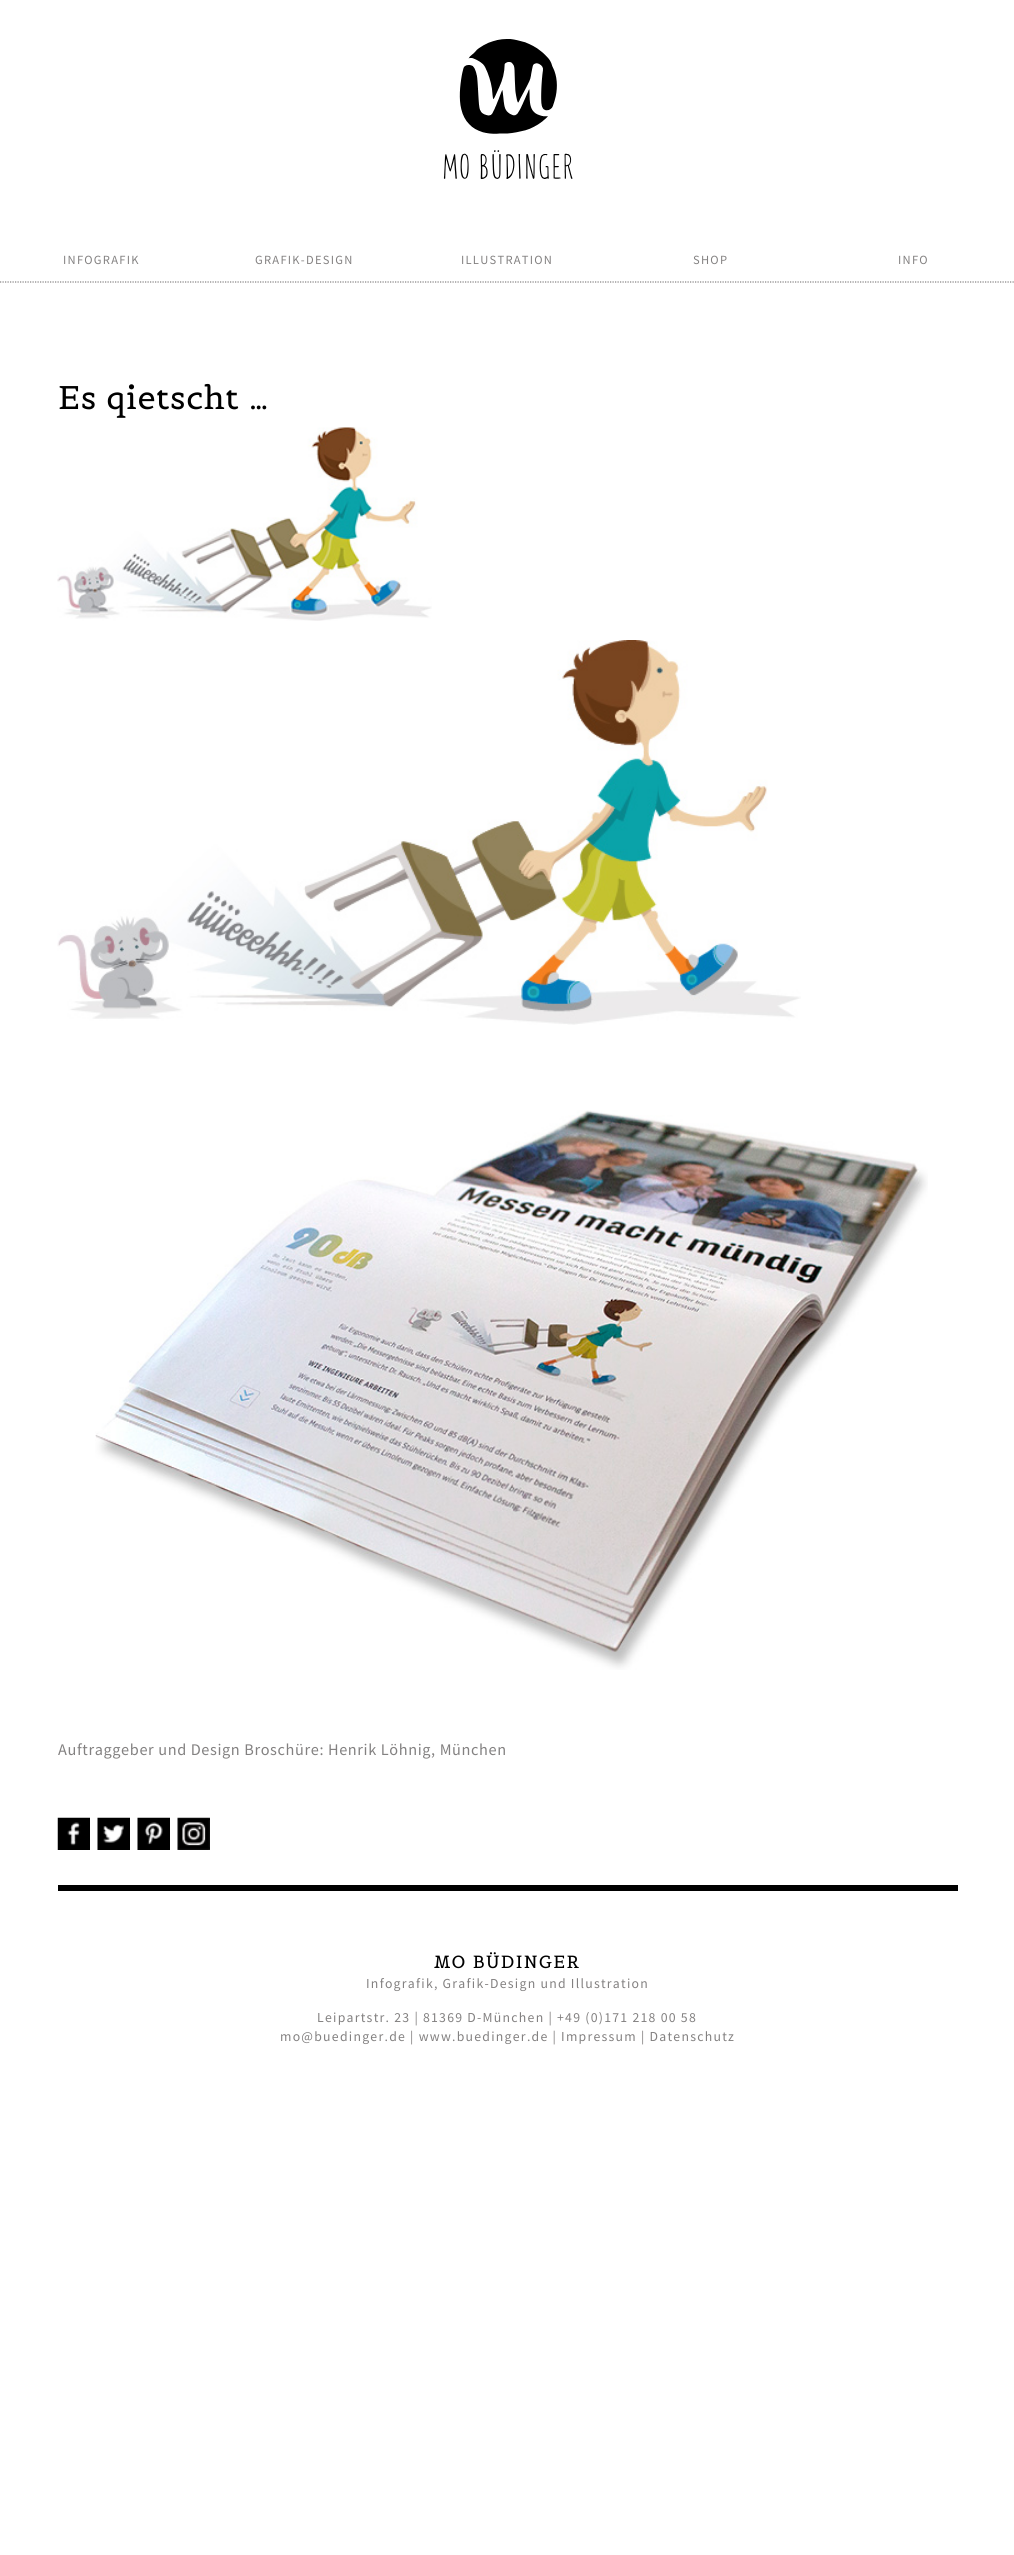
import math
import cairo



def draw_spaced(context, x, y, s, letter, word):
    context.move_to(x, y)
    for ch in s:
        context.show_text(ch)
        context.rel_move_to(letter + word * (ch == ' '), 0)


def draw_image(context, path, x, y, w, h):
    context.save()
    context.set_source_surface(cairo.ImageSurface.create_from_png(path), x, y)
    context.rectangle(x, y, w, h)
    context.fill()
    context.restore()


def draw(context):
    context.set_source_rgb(1, 1, 1)
    context.paint()
    draw_image(context, "images/1.png", 443, 39, 130, 140)
    context.new_path()
    context.move_to(0, 282)
    context.line_to(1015, 282)
    context.set_source_rgb(131 / 255, 129 / 255, 129 / 255)
    context.set_line_width(1.2)
    context.set_dash([1.25, 1.25])
    context.stroke()
    draw_image(context, "images/2.png", 57, 427, 375, 194)
    draw_image(context, "images/3.png", 57, 640, 744, 385)
    draw_image(context, "images/4.png", 95, 1110, 833, 560)
    draw_image(context, "images/5.png", 57, 1817, 33, 33)
    draw_image(context, "images/6.png", 97, 1817, 33, 33)
    draw_image(context, "images/7.png", 137, 1817, 33, 33)
    draw_image(context, "images/8.png", 177, 1817, 33, 33)
    context.set_source_rgb(0, 0, 0)
    context.rectangle(58, 1885, 900, 6)
    context.fill()
    context.select_font_face("Source Sans Pro")
    context.set_font_size(12.5)
    context.set_source_rgb(131 / 255, 129 / 255, 129 / 255)
    draw_spaced(context, 63, 264, "INFOGRAFIK", 1.25, 0)
    draw_spaced(context, 255, 264, "GRAFIK-DESIGN", 1.25, 0)
    draw_spaced(context, 461, 264, "ILLUSTRATION", 1.25, 0)
    draw_spaced(context, 693, 264, "SHOP", 1.25, 0)
    draw_spaced(context, 898, 264, "INFO", 1.25, 0)
    context.select_font_face("Belgrano")
    context.set_font_size(32.5)
    context.set_source_rgb(0, 0, 0)
    draw_spaced(context, 58, 409, "Es qietscht …", 0.62, 0)
    context.select_font_face("Source Sans Pro")
    context.set_font_size(16.25)
    context.set_source_rgb(131 / 255, 129 / 255, 129 / 255)
    draw_spaced(context, 58, 1755, "Auftraggeber und Design Broschüre: Henrik Löhnig, München", 0.62, 0)
    context.select_font_face("Belgrano")
    context.set_font_size(17.5)
    context.set_source_rgb(0, 0, 0)
    draw_spaced(context, 434, 1968, "MO BÜDINGER", 1.25, 0)
    context.select_font_face("Source Sans Pro")
    context.set_font_size(13.75)
    context.set_source_rgb(131 / 255, 129 / 255, 129 / 255)
    draw_spaced(context, 366, 1988, "Infografik, Grafik-Design und Illustration", 1.25, 0)
    draw_spaced(context, 317, 2022, "Leipartstr. 23 | 81369 D-München | +49 (0)171 218 00 58", 1.25, 0)
    draw_spaced(context, 280, 2041, "mo@buedinger.de | www.buedinger.de | Impressum | Datenschutz", 1.25, 0)


surface = cairo.ImageSurface(cairo.Format.RGB24, 1014, 2555)
context = cairo.Context(surface)
options = cairo.FontOptions()
options.set_hint_metrics(cairo.HintMetrics.OFF)
options.set_hint_style(cairo.HintStyle.NONE)
context.set_font_options(options)
context.set_miter_limit(4)
draw(context)
surface.write_to_png("out.png")
